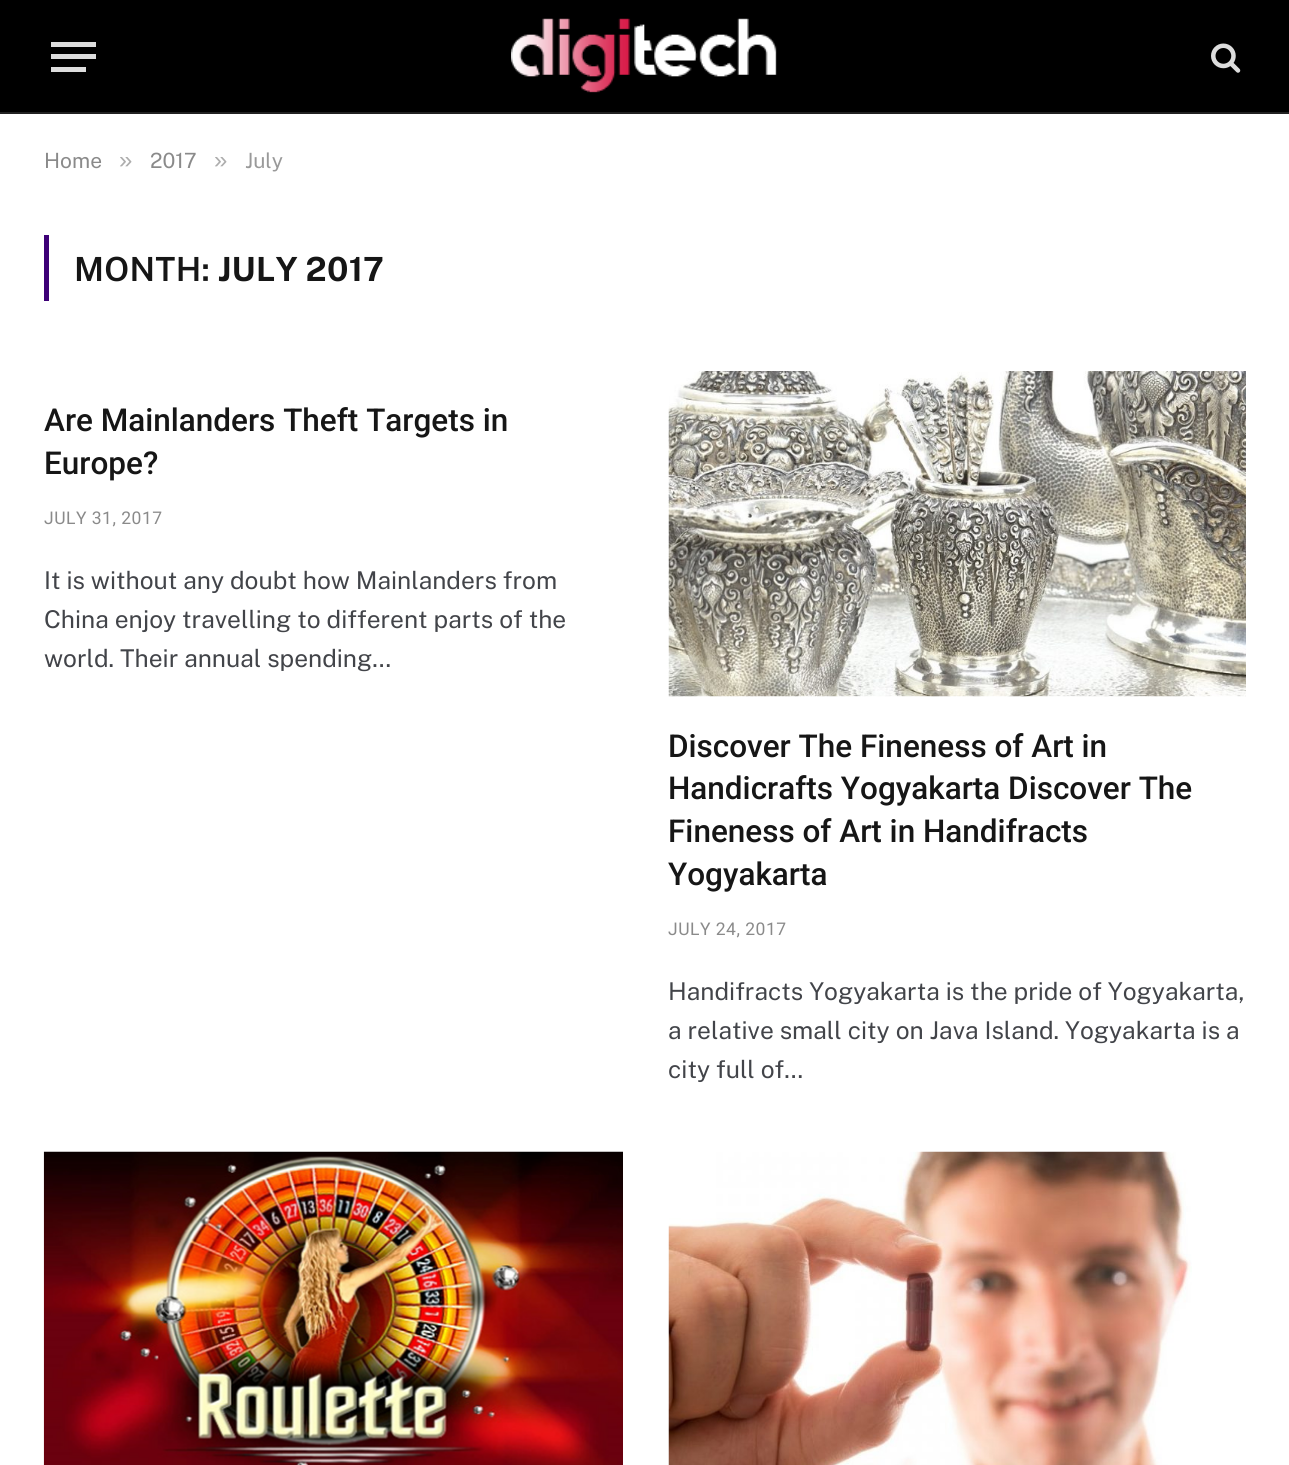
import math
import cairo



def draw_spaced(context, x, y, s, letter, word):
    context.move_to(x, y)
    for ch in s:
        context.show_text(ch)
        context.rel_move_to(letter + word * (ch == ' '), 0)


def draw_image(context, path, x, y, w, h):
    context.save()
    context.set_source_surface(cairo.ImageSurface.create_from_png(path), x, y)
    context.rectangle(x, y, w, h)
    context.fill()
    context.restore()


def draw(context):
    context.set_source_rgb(1, 1, 1)
    context.paint()
    context.set_source_rgb(0, 0, 0)
    context.rectangle(0, 0, 1289, 112)
    context.fill()
    context.set_source_rgb(34 / 255, 34 / 255, 34 / 255)
    context.rectangle(0, 112, 1289, 2)
    context.fill()
    context.set_source_rgb(221 / 255, 221 / 255, 221 / 255)
    context.rectangle(51, 67, 35, 5)
    context.fill()
    context.rectangle(51, 42, 45, 5)
    context.fill()
    context.rectangle(51, 54, 45, 5)
    context.fill()
    draw_image(context, "images/1.png", 511, 18, 266, 75)
    draw_image(context, "images/2.png", 1211, 43, 30, 30)
    context.set_source_rgb(61 / 255, 0, 119 / 255)
    context.rectangle(44, 235, 5, 66)
    context.fill()
    draw_image(context, "images/3.png", 668, 371, 578, 326)
    draw_image(context, "images/4.png", 43, 1151, 580, 314)
    draw_image(context, "images/5.png", 668, 1151, 524, 314)
    context.select_font_face("Public Sans")
    context.set_font_size(21)
    context.set_source_rgb(138 / 255, 138 / 255, 138 / 255)
    context.move_to(44, 168)
    context.show_text("Home")
    context.select_font_face("Liberation Sans")
    context.set_font_size(24)
    context.set_source_rgb(173 / 255, 173 / 255, 173 / 255)
    context.move_to(119, 168)
    context.show_text("»")
    context.select_font_face("Public Sans")
    context.set_font_size(21)
    context.set_source_rgb(138 / 255, 138 / 255, 138 / 255)
    context.move_to(150, 168)
    context.show_text("2017")
    context.select_font_face("Liberation Sans")
    context.set_font_size(24)
    context.set_source_rgb(173 / 255, 173 / 255, 173 / 255)
    context.move_to(214, 168)
    context.show_text("»")
    context.select_font_face("Public Sans")
    context.set_font_size(21)
    context.set_source_rgb(153 / 255, 153 / 255, 153 / 255)
    context.move_to(245, 168)
    context.show_text("July")
    context.select_font_face("Public Sans SemiBold")
    context.set_font_size(33.25)
    context.set_source_rgb(22 / 255, 22 / 255, 22 / 255)
    draw_spaced(context, 74, 281, "MONTH:", 0.25, 0)
    context.select_font_face("Public Sans", cairo.FontSlant.NORMAL, cairo.FontWeight.BOLD)
    draw_spaced(context, 218, 281, "JULY 2017", 0.25, 0)
    context.select_font_face("Roboto Medium")
    context.set_font_size(31.5)
    context.move_to(44, 431)
    context.show_text("Are Mainlanders Theft Targets in")
    context.move_to(44, 474)
    context.show_text("Europe?")
    context.select_font_face("Roboto")
    context.set_font_size(17.5)
    context.set_source_rgb(138 / 255, 138 / 255, 138 / 255)
    draw_spaced(context, 44, 524, "JULY 31, 2017", 0.5, 0)
    context.select_font_face("Public Sans")
    context.set_font_size(24.5)
    context.set_source_rgb(66 / 255, 68 / 255, 73 / 255)
    context.move_to(44, 589)
    context.show_text("It is without any doubt how Mainlanders from")
    context.move_to(44, 628)
    context.show_text("China enjoy travelling to different parts of the")
    context.move_to(44, 667)
    context.show_text("world. Their annual spending…")
    context.select_font_face("Roboto Medium")
    context.set_font_size(31.5)
    context.set_source_rgb(22 / 255, 22 / 255, 22 / 255)
    context.move_to(668, 757)
    context.show_text("Discover The Fineness of Art in")
    context.move_to(668, 799)
    context.show_text("Handicrafts Yogyakarta Discover The")
    context.move_to(668, 842)
    context.show_text("Fineness of Art in Handifracts")
    context.move_to(668, 885)
    context.show_text("Yogyakarta")
    context.select_font_face("Roboto")
    context.set_font_size(17.5)
    context.set_source_rgb(138 / 255, 138 / 255, 138 / 255)
    draw_spaced(context, 668, 935, "JULY 24, 2017", 0.5, 0)
    context.select_font_face("Public Sans")
    context.set_font_size(24.5)
    context.set_source_rgb(66 / 255, 68 / 255, 73 / 255)
    context.move_to(668, 1000)
    context.show_text("Handifracts Yogyakarta is the pride of Yogyakarta,")
    context.move_to(668, 1039)
    context.show_text("a relative small city on Java Island. Yogyakarta is a")
    context.move_to(668, 1078)
    context.show_text("city full of…")


surface = cairo.ImageSurface(cairo.Format.RGB24, 1289, 1465)
context = cairo.Context(surface)
options = cairo.FontOptions()
options.set_hint_metrics(cairo.HintMetrics.OFF)
options.set_hint_style(cairo.HintStyle.NONE)
context.set_font_options(options)
context.set_miter_limit(4)
draw(context)
surface.write_to_png("out.png")
